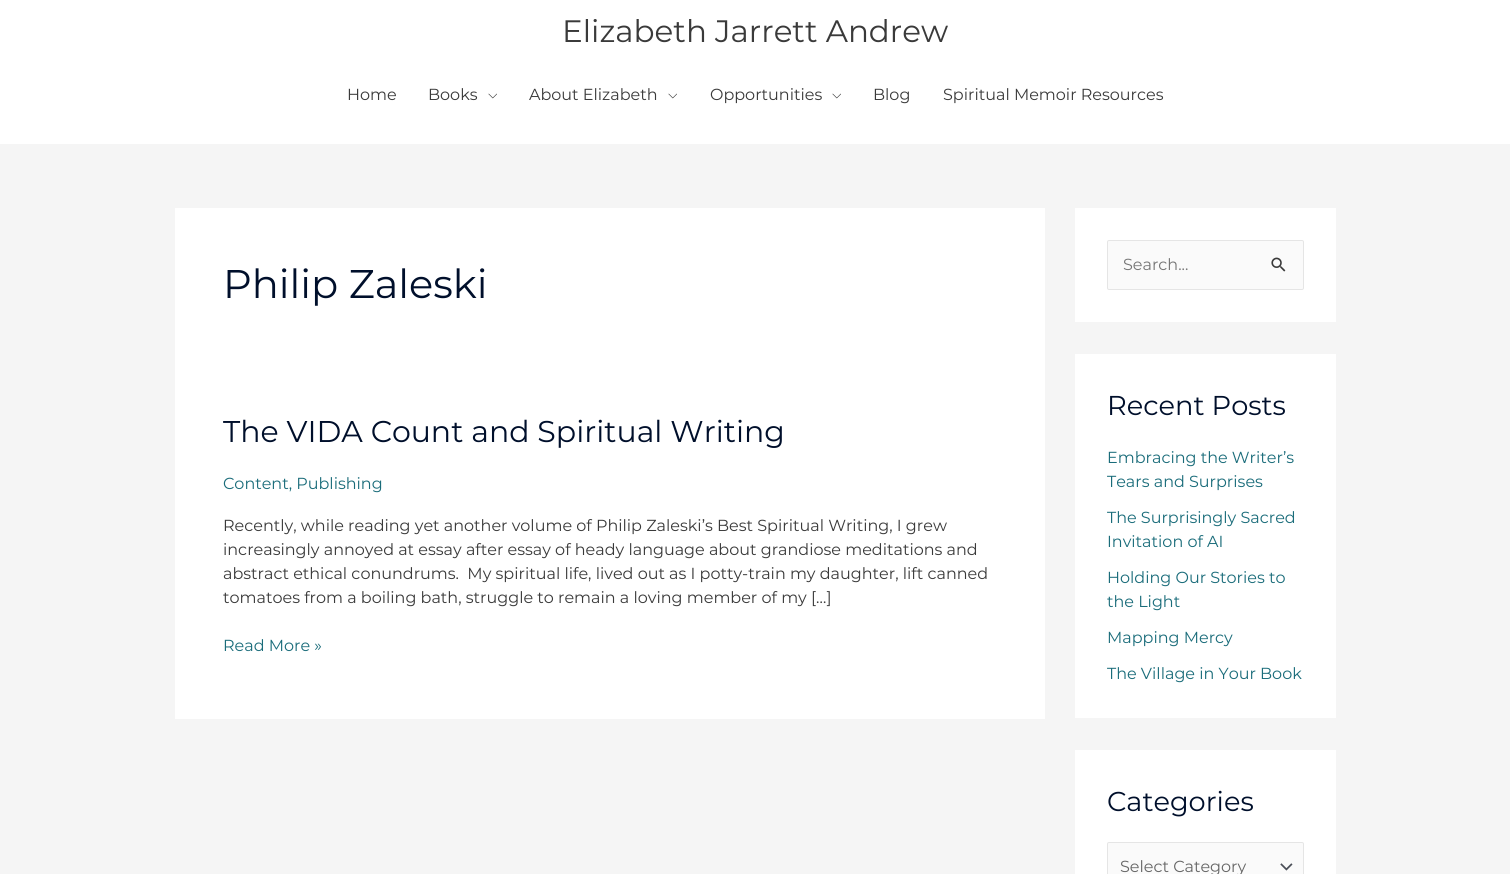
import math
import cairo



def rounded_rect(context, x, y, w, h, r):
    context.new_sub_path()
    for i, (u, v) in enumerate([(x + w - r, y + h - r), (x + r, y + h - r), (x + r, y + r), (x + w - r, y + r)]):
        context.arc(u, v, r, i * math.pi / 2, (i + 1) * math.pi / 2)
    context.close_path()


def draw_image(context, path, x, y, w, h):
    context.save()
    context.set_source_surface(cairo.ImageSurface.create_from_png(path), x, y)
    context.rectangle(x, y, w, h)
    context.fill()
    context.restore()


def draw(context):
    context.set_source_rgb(245 / 255, 245 / 255, 245 / 255)
    context.paint()
    context.set_source_rgb(1, 1, 1)
    context.rectangle(0, 0, 1510, 144)
    context.fill()
    draw_image(context, "images/1.png", 488, 93, 9, 6)
    draw_image(context, "images/1.png", 668, 93, 9, 6)
    draw_image(context, "images/1.png", 832, 93, 9, 6)
    context.rectangle(175, 208, 870, 511)
    context.fill()
    context.rectangle(1075, 208, 261, 114)
    context.fill()
    context.set_source_rgb(250 / 255, 250 / 255, 250 / 255)
    rounded_rect(context, 1107.5, 240.5, 196, 49, 1.5)
    context.fill_preserve()
    context.set_source_rgb(229 / 255, 229 / 255, 229 / 255)
    context.set_line_width(1)
    context.stroke()
    draw_image(context, "images/2.png", 1271, 257, 15, 15)
    context.set_source_rgb(1, 1, 1)
    context.rectangle(1075, 354, 261, 364)
    context.fill()
    context.rectangle(1075, 750, 261, 124)
    context.fill()
    context.set_source_rgb(250 / 255, 250 / 255, 250 / 255)
    rounded_rect(context, 1107, 842, 197, 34, 2)
    context.fill()
    draw_image(context, "images/3.png", 1280, 863, 13, 8)
    rounded_rect(context, 1107.5, 842.5, 196, 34, 1.5)
    context.set_source_rgb(229 / 255, 229 / 255, 229 / 255)
    context.stroke()
    context.select_font_face("Montserrat")
    context.set_font_size(31)
    context.set_source_rgb(58 / 255, 58 / 255, 58 / 255)
    context.move_to(562, 42)
    context.show_text("Elizabeth Jarrett Andrew")
    context.set_font_size(16)
    context.move_to(347, 100)
    context.show_text("Home")
    context.move_to(428, 100)
    context.show_text("Books")
    context.move_to(529, 100)
    context.show_text("About Elizabeth")
    context.move_to(710, 100)
    context.show_text("Opportunities")
    context.move_to(873, 100)
    context.show_text("Blog")
    context.move_to(943, 100)
    context.show_text("Spiritual Memoir Resources")
    context.set_font_size(40)
    context.set_source_rgb(0, 15 / 255, 43 / 255)
    context.move_to(223, 298)
    context.show_text("Philip Zaleski")
    context.set_font_size(30)
    context.move_to(223, 442)
    context.show_text("The VIDA Count and Spiritual Writing")
    context.set_font_size(16)
    context.set_source_rgb(26 / 255, 108 / 255, 122 / 255)
    context.move_to(223, 489)
    context.show_text("Content, Publishing")
    context.set_source_rgb(58 / 255, 58 / 255, 58 / 255)
    context.move_to(223, 531)
    context.show_text("Recently, while reading yet another volume of Philip Zaleski’s Best Spiritual Writing, I grew")
    context.move_to(223, 555)
    context.show_text("increasingly annoyed at essay after essay of heady language about grandiose meditations and")
    context.move_to(223, 579)
    context.show_text("abstract ethical conundrums.  My spiritual life, lived out as I potty-train my daughter, lift canned")
    context.move_to(223, 603)
    context.show_text("tomatoes from a boiling bath, struggle to remain a loving member of my […]")
    context.set_source_rgb(26 / 255, 108 / 255, 122 / 255)
    context.move_to(223, 651)
    context.show_text("Read More »")
    context.set_source_rgb(117 / 255, 117 / 255, 117 / 255)
    context.move_to(1123, 270)
    context.show_text("Search...")
    context.set_font_size(27.25)
    context.set_source_rgb(0, 15 / 255, 43 / 255)
    context.move_to(1107, 415)
    context.show_text("Recent Posts")
    context.set_font_size(16)
    context.set_source_rgb(26 / 255, 108 / 255, 122 / 255)
    context.move_to(1107, 463)
    context.show_text("Embracing the Writer’s")
    context.move_to(1107, 487)
    context.show_text("Tears and Surprises")
    context.move_to(1107, 523)
    context.show_text("The Surprisingly Sacred")
    context.move_to(1107, 547)
    context.show_text("Invitation of AI")
    context.move_to(1107, 583)
    context.show_text("Holding Our Stories to")
    context.move_to(1107, 607)
    context.show_text("the Light")
    context.move_to(1107, 643)
    context.show_text("Mapping Mercy")
    context.move_to(1107, 679)
    context.show_text("The Village in Your Book")
    context.set_font_size(27.25)
    context.set_source_rgb(0, 15 / 255, 43 / 255)
    context.move_to(1107, 811)
    context.show_text("Categories")
    context.set_font_size(16)
    context.set_source_rgb(102 / 255, 102 / 255, 102 / 255)
    context.move_to(1120, 872)
    context.show_text("Select Category")


surface = cairo.ImageSurface(cairo.Format.RGB24, 1510, 874)
context = cairo.Context(surface)
options = cairo.FontOptions()
options.set_hint_metrics(cairo.HintMetrics.OFF)
options.set_hint_style(cairo.HintStyle.NONE)
context.set_font_options(options)
context.set_miter_limit(4)
draw(context)
surface.write_to_png("out.png")
